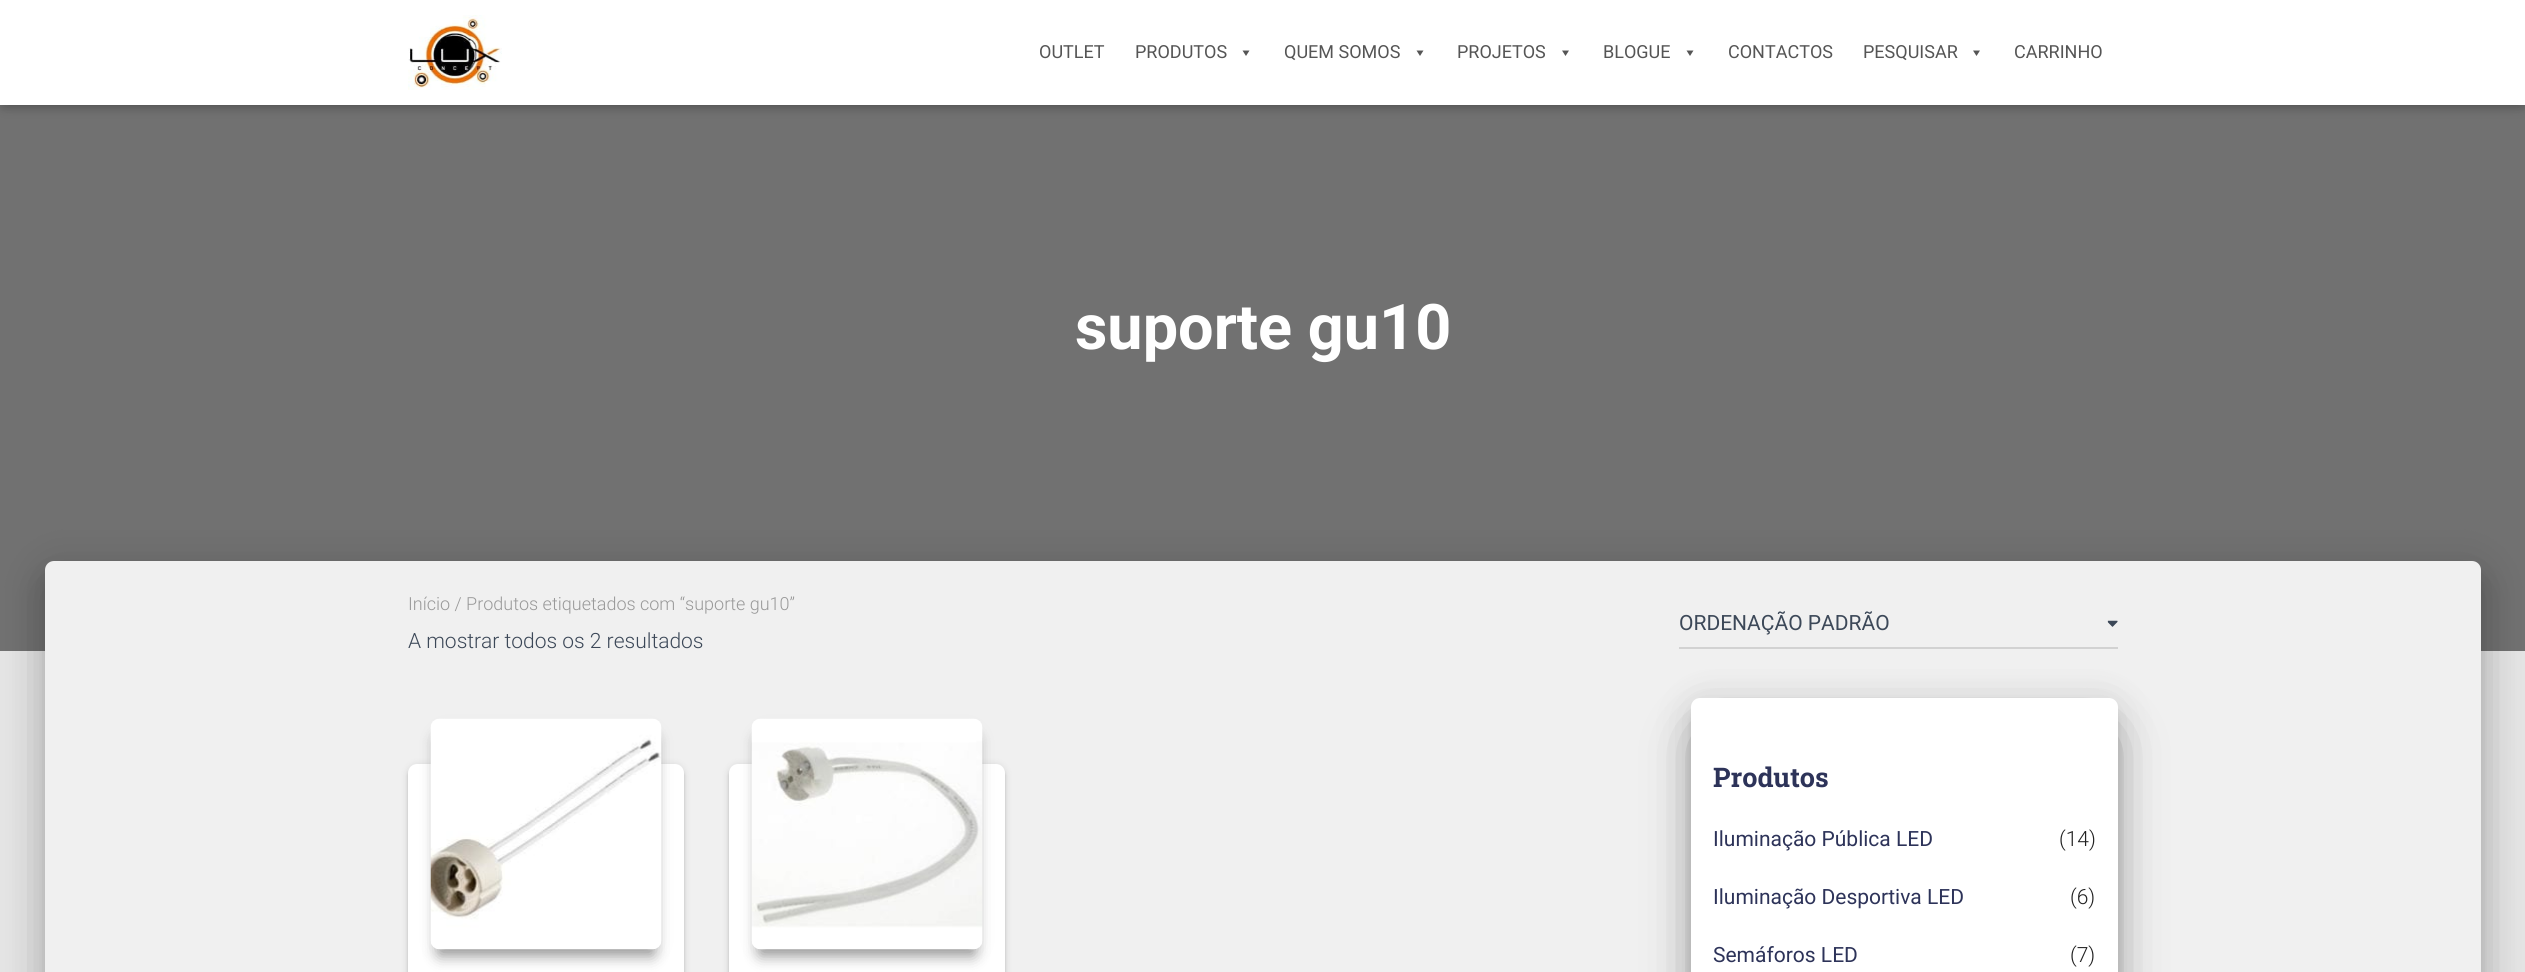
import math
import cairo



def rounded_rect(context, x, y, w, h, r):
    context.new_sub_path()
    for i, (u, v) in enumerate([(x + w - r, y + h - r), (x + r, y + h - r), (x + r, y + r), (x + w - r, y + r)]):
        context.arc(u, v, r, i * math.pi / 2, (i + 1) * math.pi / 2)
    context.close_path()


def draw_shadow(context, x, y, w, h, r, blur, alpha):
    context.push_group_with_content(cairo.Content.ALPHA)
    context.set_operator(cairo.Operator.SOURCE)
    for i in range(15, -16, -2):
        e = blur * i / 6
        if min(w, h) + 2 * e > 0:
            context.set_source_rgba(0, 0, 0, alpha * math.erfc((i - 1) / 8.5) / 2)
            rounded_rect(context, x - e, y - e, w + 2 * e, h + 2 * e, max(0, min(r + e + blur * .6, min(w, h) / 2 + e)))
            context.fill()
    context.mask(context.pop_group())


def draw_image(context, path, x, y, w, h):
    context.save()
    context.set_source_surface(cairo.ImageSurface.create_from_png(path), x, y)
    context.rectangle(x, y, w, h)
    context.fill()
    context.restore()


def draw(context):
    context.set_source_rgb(229 / 255, 229 / 255, 229 / 255)
    context.paint()
    context.set_source_rgb(113 / 255, 113 / 255, 113 / 255)
    context.rectangle(0, 105, 2525, 546)
    context.fill()
    context.set_source_rgb(0, 0, 0)
    draw_shadow(context, 3, 9, 2520, 99, 0, 4, 0.1)
    draw_shadow(context, 0, 2, 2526, 105, 0, 7.5, 0.12)
    draw_shadow(context, 9, 11, 2508, 87, 0, 7.5, 0.42)
    context.set_source_rgb(1, 1, 1)
    context.rectangle(0, 0, 2525, 105)
    context.fill()
    draw_image(context, "images/1.png", 408, 15, 94, 75)
    context.set_source_rgb(85 / 255, 85 / 255, 85 / 255)
    context.new_path()
    context.move_to(1249.5, 50.5)
    context.line_to(1246, 56)
    context.line_to(1242.5, 50.5)
    context.close_path()
    context.fill()
    context.new_path()
    context.move_to(1423.5, 50.5)
    context.line_to(1420, 56)
    context.line_to(1416.5, 50.5)
    context.close_path()
    context.fill()
    context.new_path()
    context.move_to(1569, 50.5)
    context.line_to(1565.5, 56)
    context.line_to(1562, 50.5)
    context.close_path()
    context.fill()
    context.new_path()
    context.move_to(1693.5, 50.5)
    context.line_to(1690, 56)
    context.line_to(1686.5, 50.5)
    context.close_path()
    context.fill()
    context.new_path()
    context.move_to(1980, 50.5)
    context.line_to(1976.5, 56)
    context.line_to(1973, 50.5)
    context.close_path()
    context.fill()
    context.set_source_rgb(0, 0, 0)
    draw_shadow(context, 53, 581, 2421, 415, 1.5, 7.5, 0.2)
    draw_shadow(context, 38, 563, 2451, 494, 17, 22.5, 0.12)
    draw_shadow(context, 42, 582, 2442, 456, 12, 18, 0.14)
    context.set_source_rgb(240 / 255, 240 / 255, 240 / 255)
    context.new_path()
    context.move_to(54, 561)
    context.line_to(2472, 561)
    context.curve_to(2477, 561, 2481, 565, 2481, 570)
    context.line_to(2481, 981)
    context.line_to(45, 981)
    context.line_to(45, 570)
    context.curve_to(45, 565, 49, 561, 54, 561)
    context.close_path()
    context.fill()
    context.set_source_rgb(210 / 255, 210 / 255, 210 / 255)
    context.rectangle(1679, 647, 439, 2)
    context.fill()
    draw_image(context, "images/2.png", 2107, 620, 11, 7)
    context.set_source_rgb(0, 0, 0)
    draw_shadow(context, 408, 765, 276, 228, 9, 4, 0.12)
    draw_shadow(context, 408, 767, 276, 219, 9, 1.5, 0.14)
    context.set_source_rgb(1, 1, 1)
    rounded_rect(context, 408, 764, 276, 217, 9)
    context.fill()
    context.set_source_rgb(0, 0, 0)
    draw_shadow(context, 438, 741, 216, 216, 1.5, 7.5, 0.2)
    draw_shadow(context, 438, 738, 216, 216, 1.5, 7.5, 0.2)
    draw_shadow(context, 443, 738, 207, 207, 0, 11, 0.24)
    draw_image(context, "images/3.png", 430, 718, 232, 232)
    draw_shadow(context, 729, 765, 276, 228, 9, 4, 0.12)
    draw_shadow(context, 729, 767, 276, 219, 9, 1.5, 0.14)
    context.set_source_rgb(1, 1, 1)
    rounded_rect(context, 729, 764, 276, 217, 9)
    context.fill()
    context.set_source_rgb(0, 0, 0)
    draw_shadow(context, 759, 741, 216, 216, 1.5, 7.5, 0.2)
    draw_shadow(context, 759, 738, 216, 216, 1.5, 7.5, 0.2)
    draw_shadow(context, 764, 738, 207, 207, 0, 11, 0.24)
    draw_image(context, "images/4.png", 751, 718, 232, 232)
    draw_shadow(context, 1698, 717, 413, 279, 1.5, 7.5, 0.2)
    draw_shadow(context, 1691, 704, 427, 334, 9, 19, 0.12)
    draw_shadow(context, 1709, 740, 391, 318, 0, 28.5, 0.56)
    context.set_source_rgb(1, 1, 1)
    rounded_rect(context, 1691, 698, 427, 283, 9)
    context.fill()
    context.select_font_face("Roboto")
    context.set_font_size(18)
    context.set_source_rgb(85 / 255, 85 / 255, 85 / 255)
    context.move_to(1039, 58)
    context.show_text("OUTLET")
    context.move_to(1135, 58)
    context.show_text("PRODUTOS")
    context.move_to(1284, 58)
    context.show_text("QUEM SOMOS")
    context.move_to(1457, 58)
    context.show_text("PROJETOS")
    context.move_to(1603, 58)
    context.show_text("BLOGUE")
    context.move_to(1728, 58)
    context.show_text("CONTACTOS")
    context.move_to(1863, 58)
    context.show_text("PESQUISAR")
    context.move_to(2014, 58)
    context.show_text("CARRINHO")
    context.select_font_face("Roboto", cairo.FontSlant.NORMAL, cairo.FontWeight.BOLD)
    context.set_font_size(63)
    context.set_source_rgb(1, 1, 1)
    context.move_to(1075, 349)
    context.show_text("suporte gu10")
    context.select_font_face("Roboto Light")
    context.set_font_size(18)
    context.set_source_rgb(153 / 255, 153 / 255, 153 / 255)
    context.move_to(408, 610)
    context.show_text("Início / Produtos etiquetados com “suporte gu10”")
    context.set_font_size(21)
    context.set_source_rgb(60 / 255, 72 / 255, 88 / 255)
    context.move_to(408, 648)
    context.show_text("A mostrar todos os 2 resultados")
    context.select_font_face("Roboto")
    context.move_to(1679, 630)
    context.show_text("ORDENAÇÃO PADRÃO")
    context.select_font_face("Roboto Slab", cairo.FontSlant.NORMAL, cairo.FontWeight.BOLD)
    context.set_font_size(27)
    context.set_source_rgb(45 / 255, 51 / 255, 89 / 255)
    context.move_to(1713, 787)
    context.show_text("Produtos")
    context.select_font_face("Roboto")
    context.set_font_size(21)
    context.move_to(1713, 846)
    context.show_text("Iluminação Pública LED")
    context.select_font_face("Roboto Light")
    context.set_source_rgb(33 / 255, 33 / 255, 33 / 255)
    context.move_to(2059, 846)
    context.show_text("(14)")
    context.select_font_face("Roboto")
    context.set_source_rgb(45 / 255, 51 / 255, 89 / 255)
    context.move_to(1713, 904)
    context.show_text("Iluminação Desportiva LED")
    context.select_font_face("Roboto Light")
    context.set_source_rgb(33 / 255, 33 / 255, 33 / 255)
    context.move_to(2070, 904)
    context.show_text("(6)")
    context.select_font_face("Roboto")
    context.set_source_rgb(45 / 255, 51 / 255, 89 / 255)
    context.move_to(1713, 962)
    context.show_text("Semáforos LED")
    context.select_font_face("Roboto Light")
    context.set_source_rgb(33 / 255, 33 / 255, 33 / 255)
    context.move_to(2070, 962)
    context.show_text("(7)")


surface = cairo.ImageSurface(cairo.Format.RGB24, 2525, 972)
context = cairo.Context(surface)
options = cairo.FontOptions()
options.set_hint_metrics(cairo.HintMetrics.OFF)
options.set_hint_style(cairo.HintStyle.NONE)
context.set_font_options(options)
context.set_miter_limit(4)
draw(context)
surface.write_to_png("out.png")
